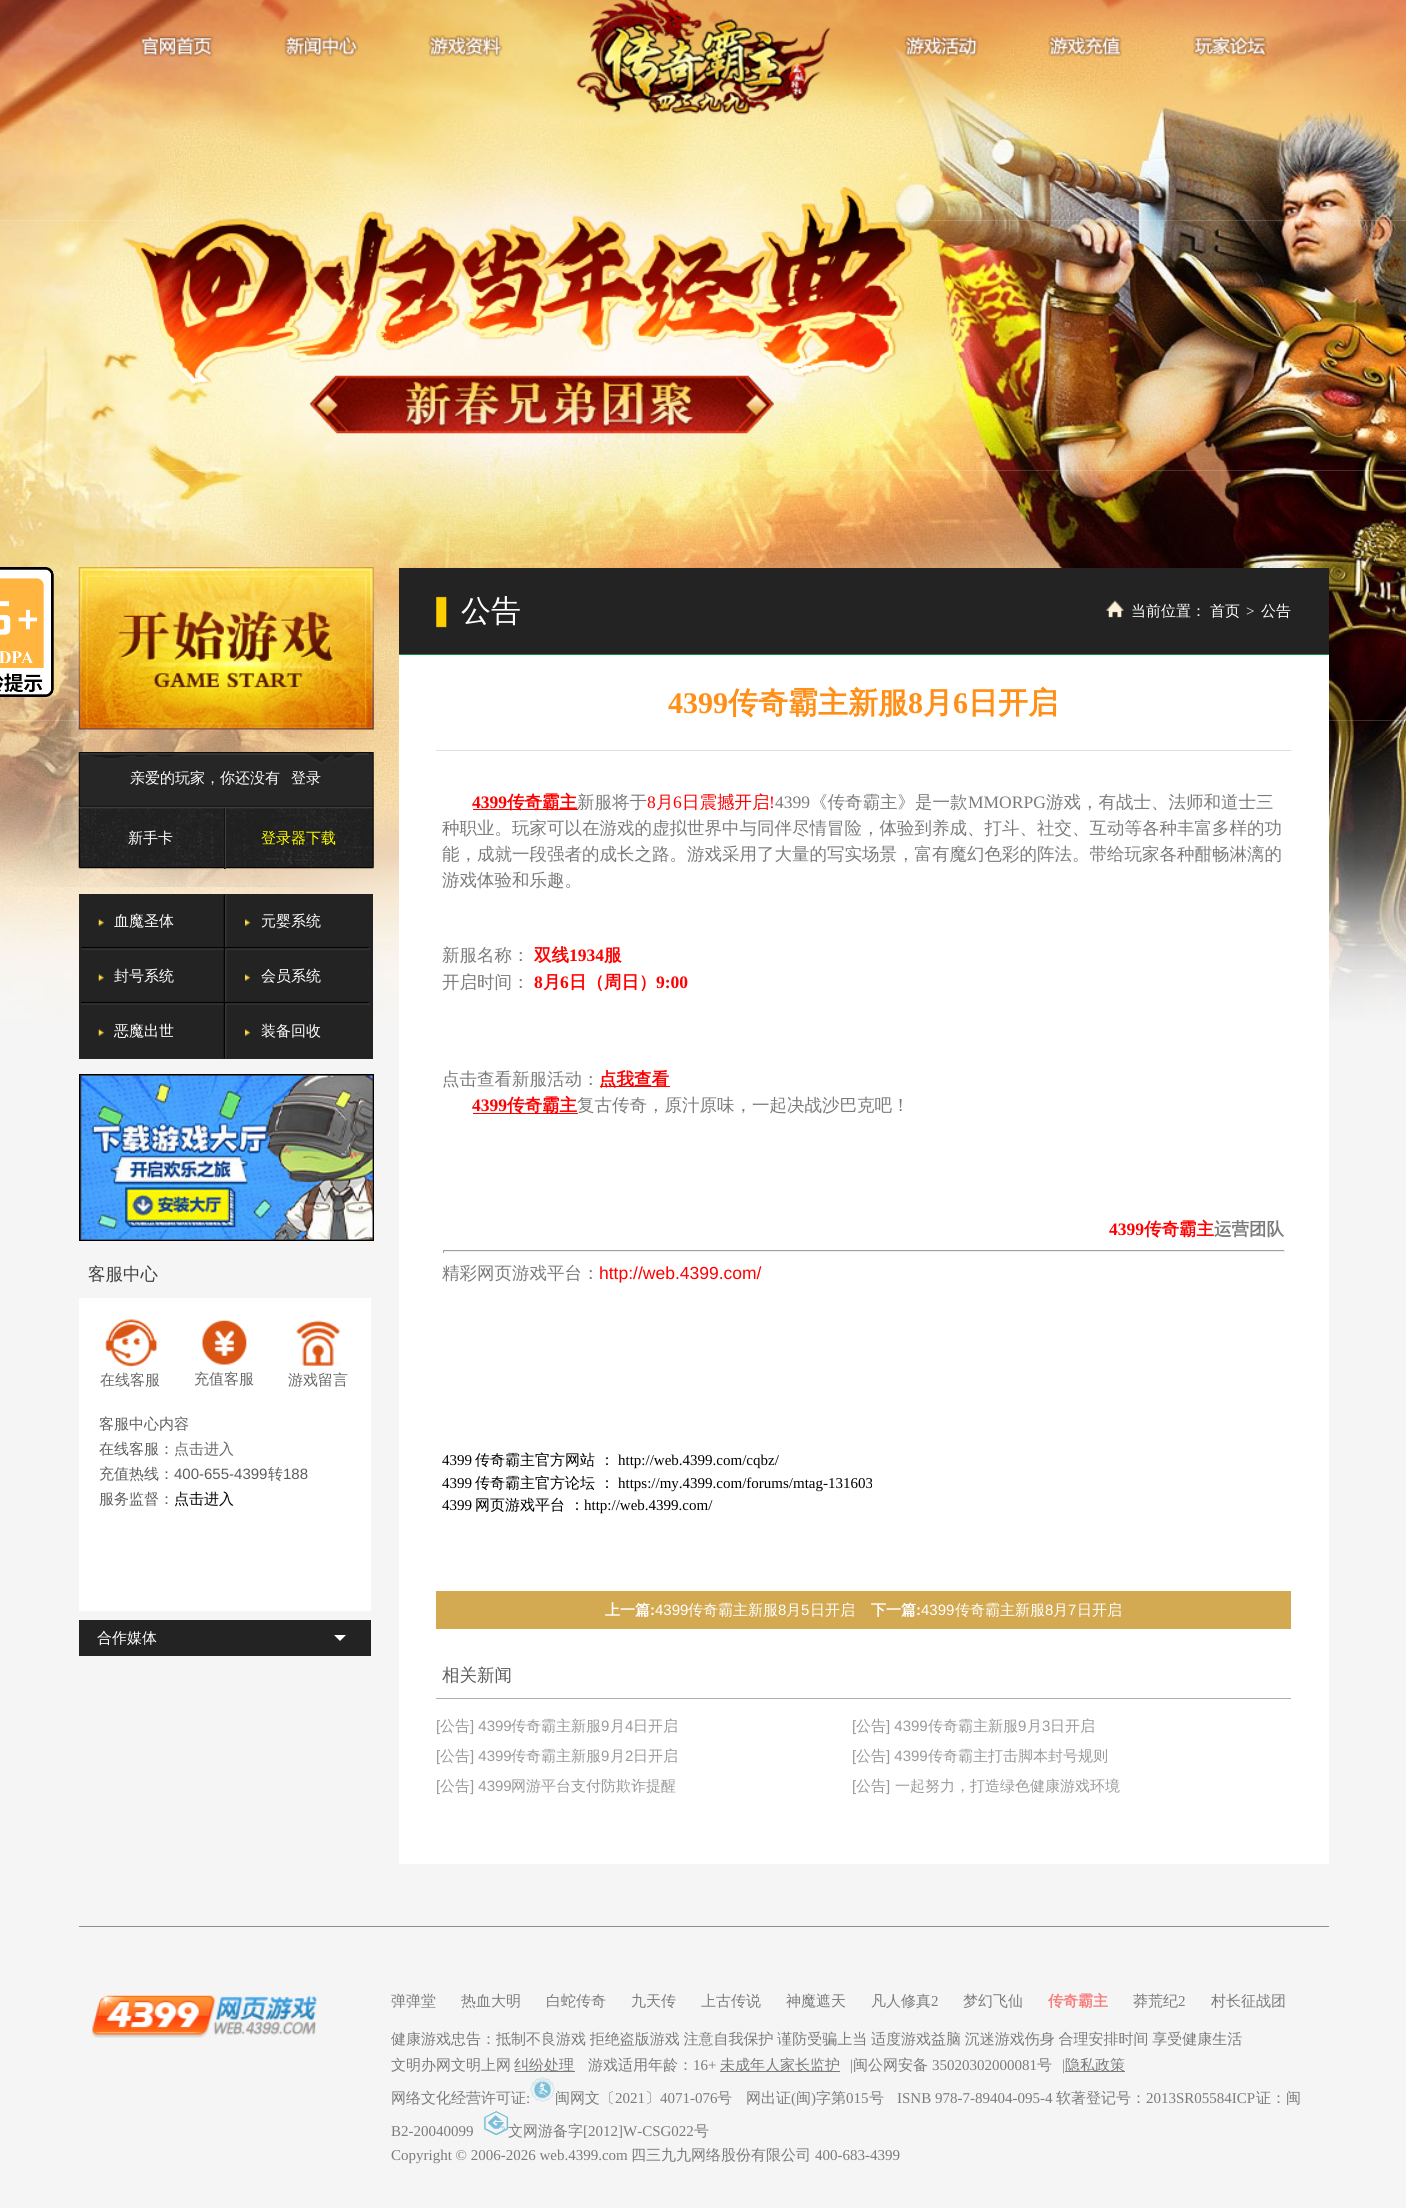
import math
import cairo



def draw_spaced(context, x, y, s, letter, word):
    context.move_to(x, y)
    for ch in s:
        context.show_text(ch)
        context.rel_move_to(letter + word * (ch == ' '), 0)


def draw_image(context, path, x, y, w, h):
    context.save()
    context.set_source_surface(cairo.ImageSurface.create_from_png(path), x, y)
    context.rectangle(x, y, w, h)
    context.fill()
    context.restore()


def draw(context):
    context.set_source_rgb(245 / 255, 245 / 255, 245 / 255)
    context.paint()
    draw_image(context, "images/1.png", 0, 0, 1406, 221)
    draw_image(context, "images/2.png", 0, 220, 1406, 251)
    draw_image(context, "images/3.png", 0, 470, 1406, 251)
    draw_image(context, "images/4.png", 0, 720, 1406, 251)
    draw_image(context, "images/5.png", 0, 970, 1406, 51)
    draw_image(context, "images/6.png", 576, 0, 255, 115)
    draw_image(context, "images/7.png", 139, 35, 75, 22)
    draw_image(context, "images/8.png", 284, 35, 75, 22)
    draw_image(context, "images/9.png", 428, 35, 75, 22)
    draw_image(context, "images/10.png", 904, 35, 75, 22)
    draw_image(context, "images/11.png", 1048, 35, 74, 22)
    draw_image(context, "images/12.png", 1193, 35, 74, 22)
    draw_image(context, "images/13.png", 122, 186, 791, 248)
    draw_image(context, "images/14.png", 0, 567, 54, 130)
    draw_image(context, "images/15.png", 78, 567, 296, 163)
    draw_image(context, "images/16.png", 78, 752, 296, 55)
    draw_image(context, "images/17.png", 78, 807, 296, 62)
    context.set_source_rgb(18 / 255, 18 / 255, 18 / 255)
    context.rectangle(224, 808, 1, 61)
    context.fill()
    context.set_source_rgb(62 / 255, 62 / 255, 62 / 255)
    context.rectangle(225, 808, 1, 61)
    context.fill()
    context.set_source_rgb(35 / 255, 35 / 255, 35 / 255)
    context.rectangle(79, 894, 294, 165)
    context.fill()
    draw_image(context, "images/18.png", 81, 894, 289, 165)
    draw_image(context, "images/19.png", 98, 919, 6, 7)
    draw_image(context, "images/20.png", 245, 919, 6, 7)
    draw_image(context, "images/19.png", 98, 974, 6, 7)
    draw_image(context, "images/20.png", 245, 974, 6, 7)
    draw_image(context, "images/19.png", 98, 1029, 6, 7)
    draw_image(context, "images/20.png", 245, 1029, 6, 7)
    context.set_source_rgb(46 / 255, 46 / 255, 46 / 255)
    context.rectangle(79.5, 1074.5, 294, 166)
    context.fill_preserve()
    context.set_source_rgb(0, 0, 0)
    context.set_line_width(1)
    context.stroke()
    draw_image(context, "images/21.png", 81, 1075, 292, 165)
    context.set_source_rgb(1, 1, 1)
    context.rectangle(79, 1298, 292, 313)
    context.fill()
    draw_image(context, "images/22.png", 105, 1319, 53, 48)
    draw_image(context, "images/23.png", 201, 1320, 46, 46)
    draw_image(context, "images/24.png", 296, 1320, 45, 46)
    context.set_source_rgb(35 / 255, 35 / 255, 35 / 255)
    context.rectangle(79, 1620, 292, 36)
    context.fill()
    context.set_source_rgb(1, 1, 1)
    context.new_path()
    context.move_to(334, 1635)
    context.line_to(346, 1635)
    context.line_to(340, 1641)
    context.close_path()
    context.fill()
    context.set_source_rgb(35 / 255, 35 / 255, 35 / 255)
    context.rectangle(399, 568, 930, 86)
    context.fill()
    draw_image(context, "images/25.png", 436, 596, 11, 32)
    draw_image(context, "images/26.png", 1106, 600, 18, 18)
    context.set_source_rgb(1, 1, 1)
    context.rectangle(399, 655, 930, 1209)
    context.fill()
    context.set_source_rgb(17 / 255, 143 / 255, 74 / 255)
    context.rectangle(399, 654, 930, 1)
    context.fill()
    context.set_source_rgb(223 / 255, 223 / 255, 223 / 255)
    context.rectangle(436, 750, 855, 1)
    context.fill()
    context.set_source_rgb(1, 0, 0)
    context.rectangle(473, 809, 105, 1)
    context.fill()
    context.rectangle(600, 1086, 70, 1)
    context.fill()
    context.rectangle(473, 1113, 105, 1)
    context.fill()
    context.set_source_rgb(159 / 255, 159 / 255, 159 / 255)
    context.rectangle(443, 1250, 842, 1)
    context.fill()
    context.set_source_rgb(238 / 255, 238 / 255, 238 / 255)
    context.rectangle(1284, 1250, 1, 3)
    context.fill()
    context.rectangle(443, 1251, 842, 1)
    context.fill()
    context.set_source_rgb(159 / 255, 159 / 255, 159 / 255)
    context.rectangle(443, 1250, 1, 3)
    context.fill()
    context.set_source_rgb(211 / 255, 170 / 255, 82 / 255)
    context.rectangle(436, 1591, 855, 38)
    context.fill()
    context.set_source_rgb(173 / 255, 173 / 255, 173 / 255)
    context.rectangle(436, 1698, 855, 1)
    context.fill()
    context.set_source_rgb(143 / 255, 143 / 255, 143 / 255)
    context.rectangle(79, 1926, 1250, 1)
    context.fill()
    draw_image(context, "images/27.png", 91, 1995, 226, 43)
    context.set_source_rgb(123 / 255, 123 / 255, 123 / 255)
    context.rectangle(515, 2071, 60, 1)
    context.fill()
    context.rectangle(720, 2071, 120, 1)
    context.fill()
    context.rectangle(1065, 2071, 60, 1)
    context.fill()
    draw_image(context, "images/28.png", 530, 2077, 25, 25)
    draw_image(context, "images/29.png", 483, 2110, 26, 26)
    context.select_font_face("WenQuanYi Zen Hei Medium")
    context.set_font_size(15)
    context.set_source_rgb(1, 1, 1)
    context.move_to(130, 783)
    context.show_text("亲爱的玩家，你还没有")
    context.move_to(291, 783)
    context.show_text("登录")
    context.move_to(128, 843)
    context.show_text("新手卡")
    context.set_source_rgb(1, 1, 0)
    context.move_to(261, 843)
    context.show_text("登录器下载")
    context.set_source_rgb(1, 1, 1)
    context.move_to(114, 926)
    context.show_text("血魔圣体")
    context.move_to(261, 926)
    context.show_text("元婴系统")
    context.move_to(114, 981)
    context.show_text("封号系统")
    context.move_to(261, 981)
    context.show_text("会员系统")
    context.move_to(114, 1036)
    context.show_text("恶魔出世")
    context.move_to(261, 1036)
    context.show_text("装备回收")
    context.set_font_size(17.5)
    context.set_source_rgb(64 / 255, 64 / 255, 64 / 255)
    context.move_to(88, 1280)
    context.show_text("客服中心")
    context.set_font_size(15)
    context.set_source_rgb(102 / 255, 102 / 255, 102 / 255)
    context.move_to(100, 1385)
    context.show_text("在线客服")
    context.move_to(194, 1384)
    context.show_text("充值客服")
    context.move_to(288, 1385)
    context.show_text("游戏留言")
    context.set_source_rgb(92 / 255, 92 / 255, 92 / 255)
    context.move_to(99, 1429)
    context.show_text("客服中心内容")
    context.move_to(99, 1454)
    context.show_text("在线客服：")
    context.set_source_rgb(102 / 255, 102 / 255, 102 / 255)
    context.move_to(174, 1454)
    context.show_text("点击进入")
    context.set_source_rgb(92 / 255, 92 / 255, 92 / 255)
    context.move_to(99, 1479)
    context.show_text("充值热线：")
    context.select_font_face("Liberation Sans")
    context.move_to(174, 1479)
    context.show_text("400-655-4399")
    context.select_font_face("WenQuanYi Zen Hei Medium")
    context.move_to(268, 1479)
    context.show_text("转")
    context.select_font_face("Liberation Sans")
    context.move_to(283, 1479)
    context.show_text("188")
    context.select_font_face("WenQuanYi Zen Hei Medium")
    context.move_to(99, 1504)
    context.show_text("服务监督：")
    context.set_source_rgb(0, 0, 0)
    context.move_to(174, 1504)
    context.show_text("点击进入")
    context.set_source_rgb(1, 1, 1)
    context.move_to(97, 1643)
    context.show_text("合作媒体")
    context.set_font_size(30)
    context.move_to(461, 621)
    context.show_text("公告")
    context.set_font_size(15)
    context.move_to(1131, 616)
    context.show_text("当前位置：")
    context.move_to(1210, 616)
    context.show_text("首页")
    context.select_font_face("Liberation Serif")
    context.move_to(1246, 616)
    context.show_text(">")
    context.select_font_face("WenQuanYi Zen Hei Medium")
    context.move_to(1261, 616)
    context.show_text("公告")
    context.select_font_face("Liberation Serif", cairo.FontSlant.NORMAL, cairo.FontWeight.BOLD)
    context.set_font_size(30)
    context.set_source_rgb(1, 143 / 255, 23 / 255)
    context.move_to(668, 713)
    context.show_text("4399")
    context.select_font_face("WenQuanYi Zen Hei", cairo.FontSlant.NORMAL, cairo.FontWeight.BOLD)
    context.move_to(728, 713)
    context.show_text("传奇霸主新服")
    context.select_font_face("Liberation Serif", cairo.FontSlant.NORMAL, cairo.FontWeight.BOLD)
    context.move_to(908, 713)
    context.show_text("8")
    context.select_font_face("WenQuanYi Zen Hei", cairo.FontSlant.NORMAL, cairo.FontWeight.BOLD)
    context.move_to(923, 713)
    context.show_text("月")
    context.select_font_face("Liberation Serif", cairo.FontSlant.NORMAL, cairo.FontWeight.BOLD)
    context.move_to(953, 713)
    context.show_text("6")
    context.select_font_face("WenQuanYi Zen Hei", cairo.FontSlant.NORMAL, cairo.FontWeight.BOLD)
    context.move_to(968, 713)
    context.show_text("日开启")
    context.select_font_face("Liberation Serif", cairo.FontSlant.NORMAL, cairo.FontWeight.BOLD)
    context.set_font_size(17.5)
    context.set_source_rgb(1, 0, 0)
    context.move_to(472, 808)
    context.show_text("4399")
    context.select_font_face("WenQuanYi Zen Hei", cairo.FontSlant.NORMAL, cairo.FontWeight.BOLD)
    context.move_to(507, 808)
    context.show_text("传奇霸主")
    context.select_font_face("WenQuanYi Zen Hei Medium")
    context.set_source_rgb(123 / 255, 123 / 255, 123 / 255)
    context.move_to(577, 808)
    context.show_text("新服将于")
    context.select_font_face("Liberation Serif")
    context.set_source_rgb(1, 0, 0)
    context.move_to(647, 808)
    context.show_text("8")
    context.select_font_face("WenQuanYi Zen Hei Medium")
    context.move_to(656, 808)
    context.show_text("月")
    context.select_font_face("Liberation Serif")
    context.move_to(673, 808)
    context.show_text("6")
    context.select_font_face("WenQuanYi Zen Hei Medium")
    context.move_to(682, 808)
    context.show_text("日震撼开启")
    context.select_font_face("Liberation Serif")
    context.move_to(769, 808)
    context.show_text("!")
    context.set_source_rgb(123 / 255, 123 / 255, 123 / 255)
    context.move_to(775, 808)
    context.show_text("4399")
    context.select_font_face("WenQuanYi Zen Hei Medium")
    context.move_to(810, 808)
    context.show_text("《传奇霸主》是一款")
    context.select_font_face("Liberation Serif")
    context.move_to(968, 808)
    context.show_text("MMORPG")
    context.select_font_face("WenQuanYi Zen Hei Medium")
    context.move_to(1046, 808)
    context.show_text("游戏，有战士、法师和道士三")
    context.move_to(442, 834)
    context.show_text("种职业。玩家可以在游戏的虚拟世界中与同伴尽情冒险，体验到养成、打斗、社交、互动等各种丰富多样的功")
    context.move_to(442, 860)
    context.show_text("能，成就一段强者的成长之路。游戏采用了大量的写实场景，富有魔幻色彩的阵法。带给玩家各种酣畅淋漓的")
    context.move_to(442, 886)
    context.show_text("游戏体验和乐趣。")
    context.move_to(442, 961)
    context.show_text("新服名称：")
    context.select_font_face("WenQuanYi Zen Hei", cairo.FontSlant.NORMAL, cairo.FontWeight.BOLD)
    context.set_source_rgb(1, 0, 0)
    context.move_to(534, 961)
    context.show_text("双线")
    context.select_font_face("Liberation Serif", cairo.FontSlant.NORMAL, cairo.FontWeight.BOLD)
    context.move_to(569, 961)
    context.show_text("1934")
    context.select_font_face("WenQuanYi Zen Hei", cairo.FontSlant.NORMAL, cairo.FontWeight.BOLD)
    context.move_to(604, 961)
    context.show_text("服")
    context.select_font_face("WenQuanYi Zen Hei Medium")
    context.set_source_rgb(123 / 255, 123 / 255, 123 / 255)
    context.move_to(442, 988)
    context.show_text("开启时间：")
    context.select_font_face("Liberation Serif", cairo.FontSlant.NORMAL, cairo.FontWeight.BOLD)
    context.set_source_rgb(1, 0, 0)
    context.move_to(534, 988)
    context.show_text("8")
    context.select_font_face("WenQuanYi Zen Hei", cairo.FontSlant.NORMAL, cairo.FontWeight.BOLD)
    context.move_to(543, 988)
    context.show_text("月")
    context.select_font_face("Liberation Serif", cairo.FontSlant.NORMAL, cairo.FontWeight.BOLD)
    context.move_to(560, 988)
    context.show_text("6")
    context.select_font_face("WenQuanYi Zen Hei", cairo.FontSlant.NORMAL, cairo.FontWeight.BOLD)
    context.move_to(569, 988)
    context.show_text("日（周日）")
    context.select_font_face("Liberation Serif", cairo.FontSlant.NORMAL, cairo.FontWeight.BOLD)
    context.move_to(656, 988)
    context.show_text("9:00")
    context.select_font_face("WenQuanYi Zen Hei Medium")
    context.set_source_rgb(123 / 255, 123 / 255, 123 / 255)
    context.move_to(442, 1085)
    context.show_text("点击查看新服活动：")
    context.select_font_face("WenQuanYi Zen Hei", cairo.FontSlant.NORMAL, cairo.FontWeight.BOLD)
    context.set_source_rgb(1, 0, 0)
    context.move_to(599, 1085)
    context.show_text("点我查看")
    context.select_font_face("Liberation Serif", cairo.FontSlant.NORMAL, cairo.FontWeight.BOLD)
    context.move_to(472, 1111)
    context.show_text("4399")
    context.select_font_face("WenQuanYi Zen Hei", cairo.FontSlant.NORMAL, cairo.FontWeight.BOLD)
    context.move_to(507, 1111)
    context.show_text("传奇霸主")
    context.select_font_face("WenQuanYi Zen Hei Medium")
    context.set_source_rgb(123 / 255, 123 / 255, 123 / 255)
    context.move_to(577, 1111)
    context.show_text("复古传奇，原汁原味，一起决战沙巴克吧！")
    context.select_font_face("Liberation Serif", cairo.FontSlant.NORMAL, cairo.FontWeight.BOLD)
    context.set_source_rgb(1, 0, 0)
    context.move_to(1109, 1235)
    context.show_text("4399")
    context.select_font_face("WenQuanYi Zen Hei", cairo.FontSlant.NORMAL, cairo.FontWeight.BOLD)
    context.move_to(1144, 1235)
    context.show_text("传奇霸主")
    context.set_source_rgb(123 / 255, 123 / 255, 123 / 255)
    context.move_to(1214, 1235)
    context.show_text("运营团队")
    context.select_font_face("WenQuanYi Zen Hei Medium")
    context.move_to(442, 1279)
    context.show_text("精彩网页游戏平台：")
    context.select_font_face("Liberation Sans")
    context.set_source_rgb(1, 0, 0)
    context.move_to(599, 1279)
    context.show_text("http://web.4399.com/")
    context.select_font_face("Liberation Serif")
    context.set_font_size(15)
    context.set_source_rgb(0, 0, 0)
    context.move_to(442, 1465)
    context.show_text("4399")
    context.select_font_face("WenQuanYi Zen Hei Medium")
    context.move_to(475, 1465)
    context.show_text("传奇霸主官方网站 ：")
    context.select_font_face("Liberation Serif")
    context.move_to(618, 1465)
    context.show_text("http://web.4399.com/cqbz/")
    context.move_to(442, 1488)
    context.show_text("4399")
    context.select_font_face("WenQuanYi Zen Hei Medium")
    context.move_to(475, 1488)
    context.show_text("传奇霸主官方论坛 ：")
    context.select_font_face("Liberation Serif")
    context.move_to(618, 1488)
    context.show_text("https://my.4399.com/forums/mtag-131603")
    context.move_to(442, 1510)
    context.show_text("4399")
    context.select_font_face("WenQuanYi Zen Hei Medium")
    context.move_to(475, 1510)
    context.show_text("网页游戏平台 ：")
    context.select_font_face("Liberation Serif")
    context.move_to(584, 1510)
    context.show_text("http://web.4399.com/")
    context.select_font_face("WenQuanYi Zen Hei", cairo.FontSlant.NORMAL, cairo.FontWeight.BOLD)
    context.set_source_rgb(1, 1, 1)
    context.move_to(605, 1615)
    context.show_text("上一篇")
    context.select_font_face("Liberation Sans", cairo.FontSlant.NORMAL, cairo.FontWeight.BOLD)
    context.move_to(650, 1615)
    context.show_text(":")
    context.select_font_face("Liberation Sans")
    context.move_to(655, 1615)
    context.show_text("4399")
    context.select_font_face("WenQuanYi Zen Hei Medium")
    context.move_to(688, 1615)
    context.show_text("传奇霸主新服")
    context.select_font_face("Liberation Sans")
    context.move_to(778, 1615)
    context.show_text("8")
    context.select_font_face("WenQuanYi Zen Hei Medium")
    context.move_to(786, 1615)
    context.show_text("月")
    context.select_font_face("Liberation Sans")
    context.move_to(801, 1615)
    context.show_text("5")
    context.select_font_face("WenQuanYi Zen Hei Medium")
    context.move_to(810, 1615)
    context.show_text("日开启")
    context.select_font_face("WenQuanYi Zen Hei", cairo.FontSlant.NORMAL, cairo.FontWeight.BOLD)
    context.move_to(871, 1615)
    context.show_text("下一篇")
    context.select_font_face("Liberation Sans", cairo.FontSlant.NORMAL, cairo.FontWeight.BOLD)
    context.move_to(916, 1615)
    context.show_text(":")
    context.select_font_face("Liberation Sans")
    context.move_to(921, 1615)
    context.show_text("4399")
    context.select_font_face("WenQuanYi Zen Hei Medium")
    context.move_to(955, 1615)
    context.show_text("传奇霸主新服")
    context.select_font_face("Liberation Sans")
    context.move_to(1045, 1615)
    context.show_text("8")
    context.select_font_face("WenQuanYi Zen Hei Medium")
    context.move_to(1053, 1615)
    context.show_text("月")
    context.select_font_face("Liberation Sans")
    context.move_to(1068, 1615)
    context.show_text("7")
    context.select_font_face("WenQuanYi Zen Hei Medium")
    context.move_to(1077, 1615)
    context.show_text("日开启")
    context.set_font_size(17.5)
    context.set_source_rgb(92 / 255, 92 / 255, 92 / 255)
    context.move_to(442, 1681)
    context.show_text("相关新闻")
    context.select_font_face("Liberation Sans")
    context.set_font_size(15)
    context.set_source_rgb(153 / 255, 153 / 255, 153 / 255)
    context.move_to(436, 1731)
    context.show_text("[")
    context.select_font_face("WenQuanYi Zen Hei Medium")
    context.move_to(440, 1731)
    context.show_text("公告")
    context.select_font_face("Liberation Sans")
    context.move_to(470, 1731)
    context.show_text("] 4399")
    context.select_font_face("WenQuanYi Zen Hei Medium")
    context.move_to(511, 1731)
    context.show_text("传奇霸主新服")
    context.select_font_face("Liberation Sans")
    context.move_to(601, 1731)
    context.show_text("9")
    context.select_font_face("WenQuanYi Zen Hei Medium")
    context.move_to(610, 1731)
    context.show_text("月")
    context.select_font_face("Liberation Sans")
    context.move_to(625, 1731)
    context.show_text("4")
    context.select_font_face("WenQuanYi Zen Hei Medium")
    context.move_to(633, 1731)
    context.show_text("日开启")
    context.select_font_face("Liberation Sans")
    context.move_to(852, 1731)
    context.show_text("[")
    context.select_font_face("WenQuanYi Zen Hei Medium")
    context.move_to(856, 1731)
    context.show_text("公告")
    context.select_font_face("Liberation Sans")
    context.move_to(886, 1731)
    context.show_text("] 4399")
    context.select_font_face("WenQuanYi Zen Hei Medium")
    context.move_to(928, 1731)
    context.show_text("传奇霸主新服")
    context.select_font_face("Liberation Sans")
    context.move_to(1018, 1731)
    context.show_text("9")
    context.select_font_face("WenQuanYi Zen Hei Medium")
    context.move_to(1027, 1731)
    context.show_text("月")
    context.select_font_face("Liberation Sans")
    context.move_to(1042, 1731)
    context.show_text("3")
    context.select_font_face("WenQuanYi Zen Hei Medium")
    context.move_to(1050, 1731)
    context.show_text("日开启")
    context.select_font_face("Liberation Sans")
    context.move_to(436, 1761)
    context.show_text("[")
    context.select_font_face("WenQuanYi Zen Hei Medium")
    context.move_to(440, 1761)
    context.show_text("公告")
    context.select_font_face("Liberation Sans")
    context.move_to(470, 1761)
    context.show_text("] 4399")
    context.select_font_face("WenQuanYi Zen Hei Medium")
    context.move_to(511, 1761)
    context.show_text("传奇霸主新服")
    context.select_font_face("Liberation Sans")
    context.move_to(601, 1761)
    context.show_text("9")
    context.select_font_face("WenQuanYi Zen Hei Medium")
    context.move_to(610, 1761)
    context.show_text("月")
    context.select_font_face("Liberation Sans")
    context.move_to(625, 1761)
    context.show_text("2")
    context.select_font_face("WenQuanYi Zen Hei Medium")
    context.move_to(633, 1761)
    context.show_text("日开启")
    context.select_font_face("Liberation Sans")
    context.move_to(852, 1761)
    context.show_text("[")
    context.select_font_face("WenQuanYi Zen Hei Medium")
    context.move_to(856, 1761)
    context.show_text("公告")
    context.select_font_face("Liberation Sans")
    context.move_to(886, 1761)
    context.show_text("] 4399")
    context.select_font_face("WenQuanYi Zen Hei Medium")
    context.move_to(928, 1761)
    context.show_text("传奇霸主打击脚本封号规则")
    context.select_font_face("Liberation Sans")
    context.move_to(436, 1791)
    context.show_text("[")
    context.select_font_face("WenQuanYi Zen Hei Medium")
    context.move_to(440, 1791)
    context.show_text("公告")
    context.select_font_face("Liberation Sans")
    context.move_to(470, 1791)
    context.show_text("] 4399")
    context.select_font_face("WenQuanYi Zen Hei Medium")
    context.move_to(511, 1791)
    context.show_text("网游平台支付防欺诈提醒")
    context.select_font_face("Liberation Sans")
    context.move_to(852, 1791)
    context.show_text("[")
    context.select_font_face("WenQuanYi Zen Hei Medium")
    context.move_to(856, 1791)
    context.show_text("公告")
    context.select_font_face("Liberation Sans")
    context.move_to(886, 1791)
    context.show_text("]")
    context.select_font_face("WenQuanYi Zen Hei Medium")
    context.move_to(895, 1791)
    context.show_text("一起努力，打造绿色健康游戏环境")
    context.set_source_rgb(123 / 255, 123 / 255, 123 / 255)
    context.move_to(391, 2006)
    context.show_text("弹弹堂")
    context.move_to(461, 2006)
    context.show_text("热血大明")
    context.move_to(546, 2006)
    context.show_text("白蛇传奇")
    context.move_to(631, 2006)
    context.show_text("九天传")
    context.move_to(701, 2006)
    context.show_text("上古传说")
    context.move_to(786, 2006)
    context.show_text("神魔遮天")
    context.move_to(871, 2006)
    context.show_text("凡人修真")
    context.select_font_face("Liberation Serif")
    context.move_to(931, 2006)
    context.show_text("2")
    context.select_font_face("WenQuanYi Zen Hei Medium")
    context.move_to(963, 2006)
    context.show_text("梦幻飞仙")
    context.select_font_face("WenQuanYi Zen Hei", cairo.FontSlant.NORMAL, cairo.FontWeight.BOLD)
    context.set_source_rgb(250 / 255, 123 / 255, 123 / 255)
    context.move_to(1048, 2006)
    context.show_text("传奇霸主")
    context.select_font_face("WenQuanYi Zen Hei Medium")
    context.set_source_rgb(123 / 255, 123 / 255, 123 / 255)
    context.move_to(1133, 2006)
    context.show_text("莽荒纪")
    context.select_font_face("Liberation Serif")
    context.move_to(1178, 2006)
    context.show_text("2")
    context.select_font_face("WenQuanYi Zen Hei Medium")
    context.move_to(1211, 2006)
    context.show_text("村长征战团")
    draw_spaced(context, 391, 2044, "健康游戏忠告：抵制不良游戏 拒绝盗版游戏 注意自我保护 谨防受骗上当 适度游戏益脑 沉迷游戏伤身 合理安排时间 享受健康生活", 0, -0.75)
    context.move_to(391, 2070)
    context.show_text("文明办网文明上网")
    context.move_to(514, 2070)
    context.show_text("纠纷处理")
    context.move_to(588, 2070)
    context.show_text("游戏适用年龄：")
    context.select_font_face("Liberation Serif")
    context.move_to(693, 2070)
    context.show_text("16+")
    context.select_font_face("WenQuanYi Zen Hei Medium")
    context.move_to(720, 2070)
    context.show_text("未成年人家长监护")
    context.select_font_face("Liberation Serif")
    context.move_to(850, 2070)
    context.show_text("|")
    context.select_font_face("WenQuanYi Zen Hei Medium")
    context.move_to(853, 2070)
    context.show_text("闽公网安备")
    context.select_font_face("Liberation Serif")
    context.move_to(932, 2070)
    context.show_text("35020302000081")
    context.select_font_face("WenQuanYi Zen Hei Medium")
    context.move_to(1037, 2070)
    context.show_text("号")
    context.select_font_face("Liberation Serif")
    context.move_to(1062, 2070)
    context.show_text("|")
    context.select_font_face("WenQuanYi Zen Hei Medium")
    context.move_to(1065, 2070)
    context.show_text("隐私政策")
    context.move_to(391, 2103)
    context.show_text("网络文化经营许可证")
    context.select_font_face("Liberation Serif")
    context.move_to(526, 2103)
    context.show_text(":")
    context.select_font_face("WenQuanYi Zen Hei Medium")
    context.move_to(555, 2103)
    context.show_text("闽网文〔")
    context.select_font_face("Liberation Serif")
    context.move_to(615, 2103)
    context.show_text("2021")
    context.select_font_face("WenQuanYi Zen Hei Medium")
    context.move_to(645, 2103)
    context.show_text("〕")
    context.select_font_face("Liberation Serif")
    context.move_to(660, 2103)
    context.show_text("4071-076")
    context.select_font_face("WenQuanYi Zen Hei Medium")
    context.move_to(717, 2103)
    context.show_text("号")
    context.move_to(746, 2103)
    context.show_text("网出证")
    context.select_font_face("Liberation Serif")
    context.move_to(791, 2103)
    context.show_text("(")
    context.select_font_face("WenQuanYi Zen Hei Medium")
    context.move_to(796, 2103)
    context.show_text("闽")
    context.select_font_face("Liberation Serif")
    context.move_to(811, 2103)
    context.show_text(")")
    context.select_font_face("WenQuanYi Zen Hei Medium")
    context.move_to(816, 2103)
    context.show_text("字第")
    context.select_font_face("Liberation Serif")
    context.move_to(846, 2103)
    context.show_text("015")
    context.select_font_face("WenQuanYi Zen Hei Medium")
    context.move_to(869, 2103)
    context.show_text("号")
    context.select_font_face("Liberation Serif")
    context.move_to(897, 2103)
    context.show_text("ISNB 978-7-89404-095-4")
    context.select_font_face("WenQuanYi Zen Hei Medium")
    context.move_to(1056, 2103)
    context.show_text("软著登记号：")
    context.select_font_face("Liberation Serif")
    context.move_to(1146, 2103)
    context.show_text("2013SR05584ICP")
    context.select_font_face("WenQuanYi Zen Hei Medium")
    context.move_to(1256, 2103)
    context.show_text("证：闽")
    context.select_font_face("Liberation Serif")
    context.move_to(391, 2136)
    context.show_text("B2-20040099")
    context.select_font_face("WenQuanYi Zen Hei Medium")
    context.move_to(508, 2136)
    context.show_text("文网游备字")
    context.select_font_face("Liberation Serif")
    context.move_to(583, 2136)
    context.show_text("[2012]W-CSG022")
    context.select_font_face("WenQuanYi Zen Hei Medium")
    context.move_to(694, 2136)
    context.show_text("号")
    context.select_font_face("Liberation Serif")
    context.move_to(391, 2160)
    context.show_text("Copyright © 2006-2026 web.4399.com")
    context.select_font_face("WenQuanYi Zen Hei Medium")
    context.move_to(631, 2160)
    context.show_text("四三九九网络股份有限公司")
    context.select_font_face("Liberation Serif")
    context.move_to(815, 2160)
    context.show_text("400-683-4399")


surface = cairo.ImageSurface(cairo.Format.RGB24, 1406, 2208)
context = cairo.Context(surface)
options = cairo.FontOptions()
options.set_hint_metrics(cairo.HintMetrics.OFF)
options.set_hint_style(cairo.HintStyle.NONE)
context.set_font_options(options)
context.set_miter_limit(4)
draw(context)
surface.write_to_png("out.png")
